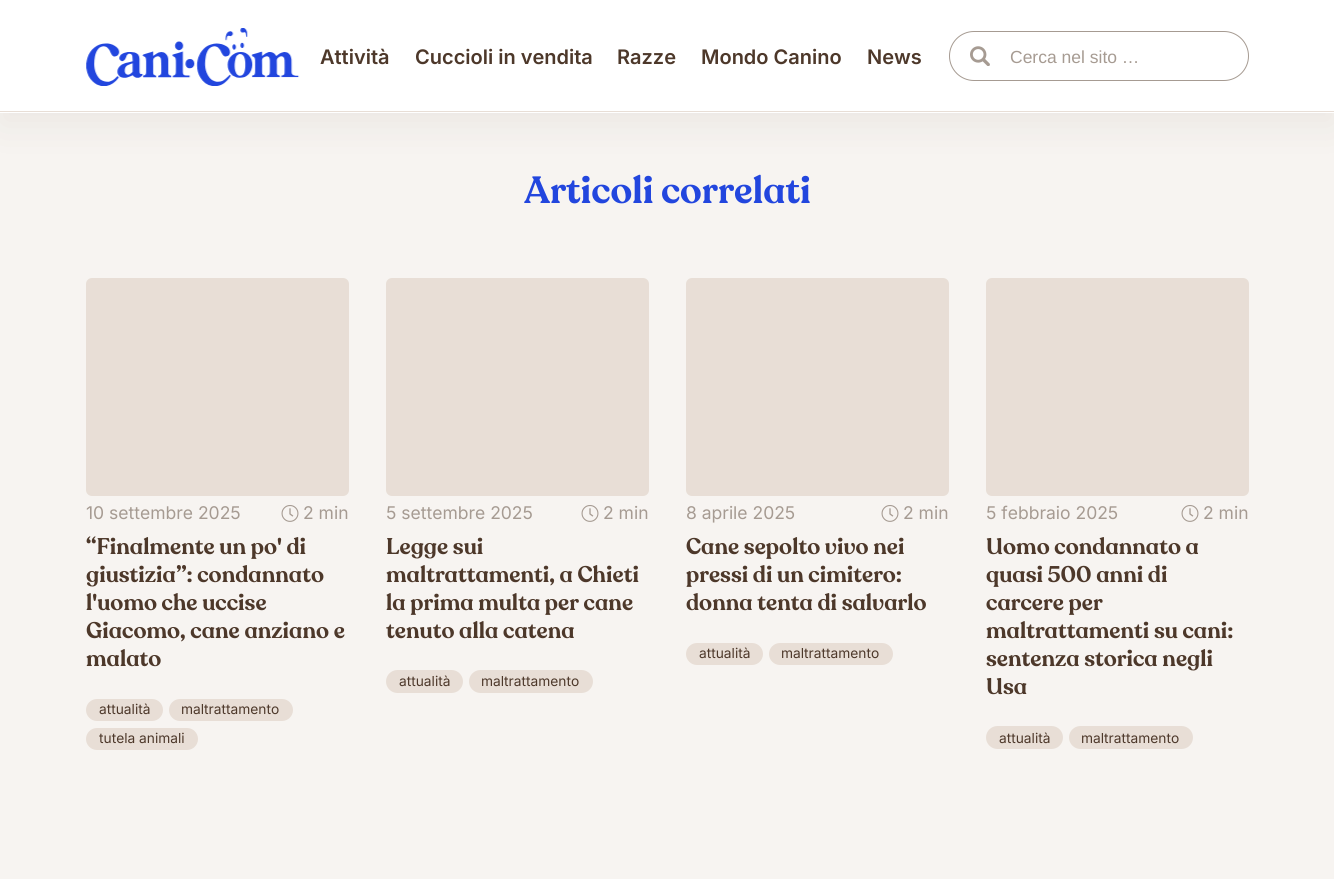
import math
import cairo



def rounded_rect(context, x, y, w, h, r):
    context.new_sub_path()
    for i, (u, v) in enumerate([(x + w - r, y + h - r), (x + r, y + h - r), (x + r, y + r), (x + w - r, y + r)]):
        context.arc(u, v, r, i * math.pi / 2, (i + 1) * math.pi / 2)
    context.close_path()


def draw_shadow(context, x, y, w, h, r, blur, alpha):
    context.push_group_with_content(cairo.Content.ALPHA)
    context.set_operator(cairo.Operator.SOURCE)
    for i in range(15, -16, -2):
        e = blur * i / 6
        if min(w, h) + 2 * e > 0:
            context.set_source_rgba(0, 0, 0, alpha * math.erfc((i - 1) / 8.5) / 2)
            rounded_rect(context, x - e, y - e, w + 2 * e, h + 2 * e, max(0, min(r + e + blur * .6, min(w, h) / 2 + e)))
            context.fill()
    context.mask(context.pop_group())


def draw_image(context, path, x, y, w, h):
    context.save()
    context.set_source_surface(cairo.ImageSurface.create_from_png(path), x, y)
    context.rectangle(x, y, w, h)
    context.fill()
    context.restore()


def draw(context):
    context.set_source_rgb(247 / 255, 244 / 255, 241 / 255)
    context.paint()
    context.set_source_rgb(166 / 255, 155 / 255, 146 / 255)
    draw_shadow(context, 0, 13, 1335, 112, 0, 19, 0.15)
    context.set_source_rgb(1, 1, 1)
    context.rectangle(0, 0, 1334, 113)
    context.fill()
    context.set_source_rgb(232 / 255, 222 / 255, 214 / 255)
    context.rectangle(0, 111, 1334, 1)
    context.fill()
    draw_image(context, "images/1.png", 86, 28, 214, 58)
    draw_image(context, "images/2.png", 970, 46, 20, 20)
    rounded_rect(context, 949.5, 31.5, 299, 49, 24.5)
    context.set_source_rgb(166 / 255, 155 / 255, 146 / 255)
    context.set_line_width(1)
    context.stroke()
    context.set_source_rgb(232 / 255, 222 / 255, 214 / 255)
    rounded_rect(context, 86, 278, 263, 218, 6)
    context.fill()
    draw_image(context, "images/3.png", 281, 505, 18, 17)
    rounded_rect(context, 86, 699, 77, 22, 11)
    context.fill()
    rounded_rect(context, 169, 699, 124, 22, 11)
    context.fill()
    rounded_rect(context, 86, 728, 112, 22, 11)
    context.fill()
    rounded_rect(context, 386, 278, 263, 218, 6)
    context.fill()
    draw_image(context, "images/3.png", 581, 505, 18, 17)
    rounded_rect(context, 386, 670, 77, 23, 11.5)
    context.fill()
    rounded_rect(context, 469, 670, 124, 23, 11.5)
    context.fill()
    rounded_rect(context, 686, 278, 263, 218, 6)
    context.fill()
    draw_image(context, "images/3.png", 881, 505, 18, 17)
    rounded_rect(context, 686, 643, 77, 22, 11)
    context.fill()
    rounded_rect(context, 769, 643, 124, 22, 11)
    context.fill()
    rounded_rect(context, 986, 278, 263, 218, 6)
    context.fill()
    draw_image(context, "images/3.png", 1181, 505, 18, 17)
    rounded_rect(context, 986, 726, 77, 23, 11.5)
    context.fill()
    rounded_rect(context, 1069, 726, 124, 23, 11.5)
    context.fill()
    context.select_font_face("Inter SemiBold")
    context.set_font_size(20)
    context.set_source_rgb(77 / 255, 56 / 255, 42 / 255)
    context.move_to(320, 64)
    context.show_text("Attività")
    context.move_to(415, 64)
    context.show_text("Cuccioli in vendita")
    context.move_to(617, 64)
    context.show_text("Razze")
    context.move_to(701, 64)
    context.show_text("Mondo Canino")
    context.move_to(867, 64)
    context.show_text("News")
    context.select_font_face("Liberation Sans")
    context.set_font_size(17.5)
    context.set_source_rgb(166 / 255, 155 / 255, 146 / 255)
    context.move_to(1010, 63)
    context.show_text("Cerca nel sito …")
    context.select_font_face("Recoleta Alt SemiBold")
    context.set_font_size(37.5)
    context.set_source_rgb(34 / 255, 70 / 255, 222 / 255)
    context.move_to(524, 203)
    context.show_text("Articoli correlati")
    context.select_font_face("Inter")
    context.set_font_size(17.5)
    context.set_source_rgb(166 / 255, 155 / 255, 146 / 255)
    context.move_to(86, 519)
    context.show_text("10 settembre 2025")
    context.move_to(303, 519)
    context.show_text("2 min")
    context.select_font_face("Recoleta Alt SemiBold")
    context.set_font_size(22.5)
    context.set_source_rgb(77 / 255, 56 / 255, 42 / 255)
    context.move_to(86, 554)
    context.show_text("“Finalmente un po' di")
    context.move_to(86, 582)
    context.show_text("giustizia”: condannato")
    context.move_to(86, 610)
    context.show_text("l'uomo che uccise")
    context.move_to(86, 638)
    context.show_text("Giacomo, cane anziano e")
    context.move_to(86, 666)
    context.show_text("malato")
    context.select_font_face("Inter")
    context.set_font_size(13.75)
    context.move_to(99, 714)
    context.show_text("attualità")
    context.move_to(181, 714)
    context.show_text("maltrattamento")
    context.move_to(99, 743)
    context.show_text("tutela animali")
    context.set_font_size(17.5)
    context.set_source_rgb(166 / 255, 155 / 255, 146 / 255)
    context.move_to(386, 519)
    context.show_text("5 settembre 2025")
    context.move_to(603, 519)
    context.show_text("2 min")
    context.select_font_face("Recoleta Alt SemiBold")
    context.set_font_size(22.5)
    context.set_source_rgb(77 / 255, 56 / 255, 42 / 255)
    context.move_to(386, 554)
    context.show_text("Legge sui")
    context.move_to(386, 582)
    context.show_text("maltrattamenti, a Chieti")
    context.move_to(386, 610)
    context.show_text("la prima multa per cane")
    context.move_to(386, 638)
    context.show_text("tenuto alla catena")
    context.select_font_face("Inter")
    context.set_font_size(13.75)
    context.move_to(399, 686)
    context.show_text("attualità")
    context.move_to(481, 686)
    context.show_text("maltrattamento")
    context.set_font_size(17.5)
    context.set_source_rgb(166 / 255, 155 / 255, 146 / 255)
    context.move_to(686, 519)
    context.show_text("8 aprile 2025")
    context.move_to(903, 519)
    context.show_text("2 min")
    context.select_font_face("Recoleta Alt SemiBold")
    context.set_font_size(22.5)
    context.set_source_rgb(77 / 255, 56 / 255, 42 / 255)
    context.move_to(686, 554)
    context.show_text("Cane sepolto vivo nei")
    context.move_to(686, 582)
    context.show_text("pressi di un cimitero:")
    context.move_to(686, 610)
    context.show_text("donna tenta di salvarlo")
    context.select_font_face("Inter")
    context.set_font_size(13.75)
    context.move_to(699, 658)
    context.show_text("attualità")
    context.move_to(781, 658)
    context.show_text("maltrattamento")
    context.set_font_size(17.5)
    context.set_source_rgb(166 / 255, 155 / 255, 146 / 255)
    context.move_to(986, 519)
    context.show_text("5 febbraio 2025")
    context.move_to(1203, 519)
    context.show_text("2 min")
    context.select_font_face("Recoleta Alt SemiBold")
    context.set_font_size(22.5)
    context.set_source_rgb(77 / 255, 56 / 255, 42 / 255)
    context.move_to(986, 554)
    context.show_text("Uomo condannato a")
    context.move_to(986, 582)
    context.show_text("quasi 500 anni di")
    context.move_to(986, 610)
    context.show_text("carcere per")
    context.move_to(986, 638)
    context.show_text("maltrattamenti su cani:")
    context.move_to(986, 666)
    context.show_text("sentenza storica negli")
    context.move_to(986, 694)
    context.show_text("Usa")
    context.select_font_face("Inter")
    context.set_font_size(13.75)
    context.move_to(999, 743)
    context.show_text("attualità")
    context.move_to(1081, 743)
    context.show_text("maltrattamento")


surface = cairo.ImageSurface(cairo.Format.RGB24, 1334, 879)
context = cairo.Context(surface)
options = cairo.FontOptions()
options.set_hint_metrics(cairo.HintMetrics.OFF)
options.set_hint_style(cairo.HintStyle.NONE)
context.set_font_options(options)
context.set_miter_limit(4)
draw(context)
surface.write_to_png("out.png")
